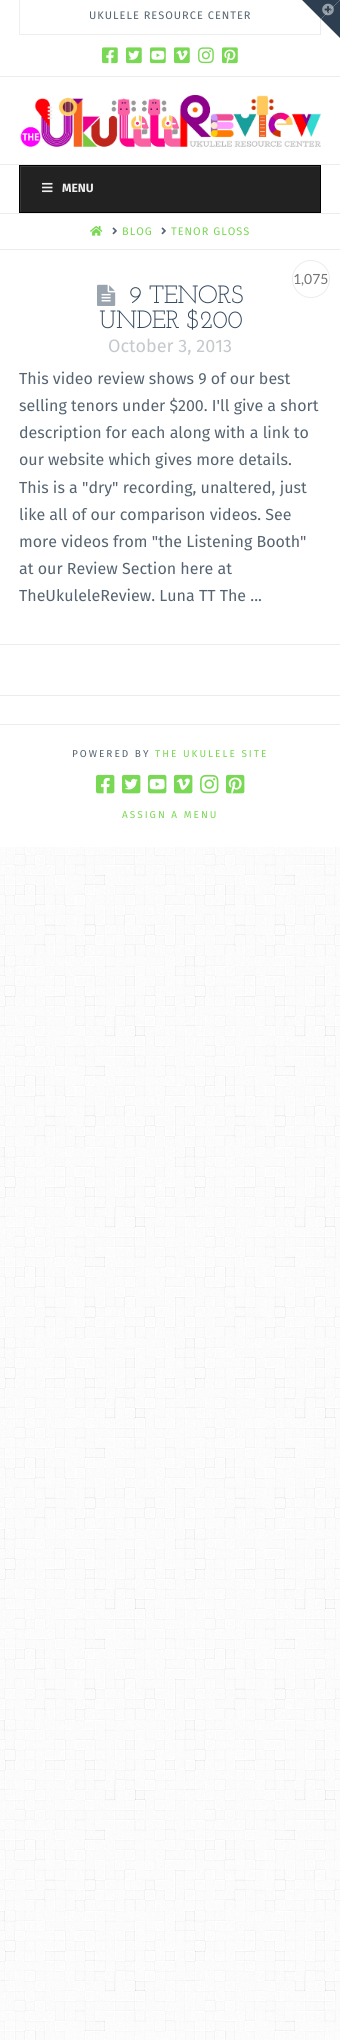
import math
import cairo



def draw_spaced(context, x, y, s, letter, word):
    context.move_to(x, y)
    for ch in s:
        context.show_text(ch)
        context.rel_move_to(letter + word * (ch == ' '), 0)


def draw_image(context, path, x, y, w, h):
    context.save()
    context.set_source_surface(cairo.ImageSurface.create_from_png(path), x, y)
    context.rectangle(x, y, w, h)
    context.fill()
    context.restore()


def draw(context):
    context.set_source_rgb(1, 1, 1)
    context.paint()
    draw_image(context, "images/1.png", 0, 847, 340, 1193)
    context.set_source_rgb(236 / 255, 236 / 255, 236 / 255)
    context.new_path()
    context.move_to(321, 0)
    context.line_to(321, 35)
    context.line_to(320, 34)
    context.line_to(320, 0)
    context.close_path()
    context.fill()
    context.set_source_rgb(44 / 255, 62 / 255, 80 / 255)
    context.new_path()
    context.move_to(302, 0)
    context.line_to(340, 0)
    context.line_to(321, 19)
    context.close_path()
    context.fill()
    context.new_path()
    context.move_to(340, 0)
    context.line_to(340, 38)
    context.line_to(321, 19)
    context.close_path()
    context.fill()
    draw_image(context, "images/2.png", 322, 3, 12, 13)
    context.set_source_rgb(236 / 255, 236 / 255, 236 / 255)
    context.rectangle(0, 76, 340, 1)
    context.fill()
    context.set_source_rgba(0, 0, 0, 0.07)
    context.new_path()
    context.move_to(321, 35)
    context.line_to(19, 35)
    context.line_to(20, 34)
    context.line_to(320, 34)
    context.close_path()
    context.fill()
    context.new_path()
    context.move_to(19, 35)
    context.line_to(19, 0)
    context.line_to(20, 0)
    context.line_to(20, 34)
    context.close_path()
    context.fill()
    draw_image(context, "images/3.png", 102, 47, 16, 17)
    draw_image(context, "images/4.png", 126, 47, 16, 17)
    draw_image(context, "images/5.png", 150, 47, 16, 17)
    draw_image(context, "images/6.png", 174, 47, 16, 17)
    draw_image(context, "images/7.png", 198, 47, 16, 17)
    draw_image(context, "images/8.png", 222, 47, 16, 17)
    context.set_source_rgb(236 / 255, 236 / 255, 236 / 255)
    context.rectangle(0, 164, 340, 1)
    context.fill()
    draw_image(context, "images/9.png", 20, 95, 301, 52)
    context.rectangle(0, 213, 340, 1)
    context.fill()
    context.set_source_rgb(34 / 255, 34 / 255, 34 / 255)
    context.rectangle(21, 167, 299, 45)
    context.fill()
    context.save()
    context.rectangle(20, 166, 300, 46)
    context.clip()
    context.set_source_rgb(56 / 255, 56 / 255, 56 / 255)
    context.set_fill_rule(cairo.FillRule.EVEN_ODD)
    context.new_path()
    context.move_to(-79, 67)
    context.line_to(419, 67)
    context.line_to(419, 311)
    context.line_to(-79, 311)
    context.close_path()
    context.move_to(21, 167)
    context.line_to(321, 167)
    context.line_to(321, 213)
    context.line_to(21, 213)
    context.close_path()
    context.fill()
    context.restore()
    context.rectangle(19.5, 165.5, 301, 47)
    context.set_source_rgb(0, 0, 0)
    context.set_line_width(1)
    context.stroke()
    draw_image(context, "images/10.png", 42, 182, 11, 11)
    context.set_source_rgb(236 / 255, 236 / 255, 236 / 255)
    context.rectangle(0, 249, 340, 1)
    context.fill()
    draw_image(context, "images/11.png", 90, 226, 13, 10)
    draw_image(context, "images/12.png", 112, 227, 5, 8)
    draw_image(context, "images/12.png", 161, 227, 5, 8)
    context.rectangle(0, 644, 340, 1)
    context.fill()
    context.arc(311, 279, 18.5, 0, 2 * math.pi)
    context.stroke()
    draw_image(context, "images/13.png", 97, 284, 19, 22)
    context.rectangle(0, 695, 340, 1)
    context.fill()
    context.rectangle(0, 724, 340, 1)
    context.fill()
    draw_image(context, "images/14.png", 96, 774, 19, 20)
    draw_image(context, "images/15.png", 122, 774, 19, 20)
    draw_image(context, "images/16.png", 148, 774, 19, 20)
    draw_image(context, "images/17.png", 174, 774, 19, 20)
    draw_image(context, "images/18.png", 200, 774, 19, 20)
    draw_image(context, "images/19.png", 226, 774, 19, 20)
    context.select_font_face("Fira Sans")
    context.set_font_size(11)
    context.set_source_rgb(86 / 255, 100 / 255, 113 / 255)
    draw_spaced(context, 89, 19, "UKULELE RESOURCE CENTER", 1, 0)
    context.select_font_face("Fira Sans", cairo.FontSlant.NORMAL, cairo.FontWeight.BOLD)
    context.set_font_size(12)
    context.set_source_rgb(238 / 255, 238 / 255, 238 / 255)
    context.move_to(62, 192)
    context.show_text("MENU")
    context.select_font_face("Fira Sans")
    context.set_font_size(11)
    context.set_source_rgb(121 / 255, 216 / 255, 84 / 255)
    draw_spaced(context, 122, 235, "BLOG", 1, 0)
    draw_spaced(context, 171, 235, "TENOR GLOSS", 1, 0)
    context.select_font_face("Lato")
    context.set_font_size(14)
    context.set_source_rgb(115 / 255, 115 / 255, 115 / 255)
    context.move_to(293, 284)
    context.show_text("1,075")
    context.select_font_face("Josefin Slab Thin")
    context.set_font_size(25)
    context.set_source_rgb(52 / 255, 73 / 255, 94 / 255)
    draw_spaced(context, 129, 303, "9 TENORS", -0.5, 0)
    draw_spaced(context, 99, 328, "UNDER $200", -0.5, 0)
    context.select_font_face("Fira Sans")
    context.set_font_size(18)
    context.set_source_rgb(196 / 255, 201 / 255, 205 / 255)
    context.move_to(108, 352)
    context.show_text("October 3, 2013")
    context.set_font_size(16)
    context.set_source_rgb(86 / 255, 100 / 255, 113 / 255)
    context.move_to(19, 384)
    context.show_text("This video review shows 9 of our best")
    context.move_to(19, 411)
    context.show_text("selling tenors under $200. I'll give a short")
    context.move_to(19, 438)
    context.show_text("description for each along with a link to")
    context.move_to(19, 465)
    context.show_text("our website which gives more details.")
    context.move_to(19, 493)
    context.show_text("This is a \"dry\" recording, unaltered, just")
    context.move_to(19, 520)
    context.show_text("like all of our comparison videos. See")
    context.move_to(19, 547)
    context.show_text("more videos from \"the Listening Booth\"")
    context.move_to(19, 574)
    context.show_text("at our Review Section here at")
    context.move_to(19, 601)
    context.show_text("TheUkuleleReview. Luna TT The ...")
    context.set_font_size(10)
    draw_spaced(context, 72, 757, "POWERED BY", 2, 0)
    context.set_source_rgb(121 / 255, 216 / 255, 84 / 255)
    draw_spaced(context, 155, 757, "THE UKULELE SITE", 2, 0)
    draw_spaced(context, 122, 818, "ASSIGN A MENU", 2, 0)


surface = cairo.ImageSurface(cairo.Format.RGB24, 340, 2040)
context = cairo.Context(surface)
options = cairo.FontOptions()
options.set_hint_metrics(cairo.HintMetrics.OFF)
options.set_hint_style(cairo.HintStyle.NONE)
context.set_font_options(options)
context.set_miter_limit(4)
draw(context)
surface.write_to_png("out.png")
